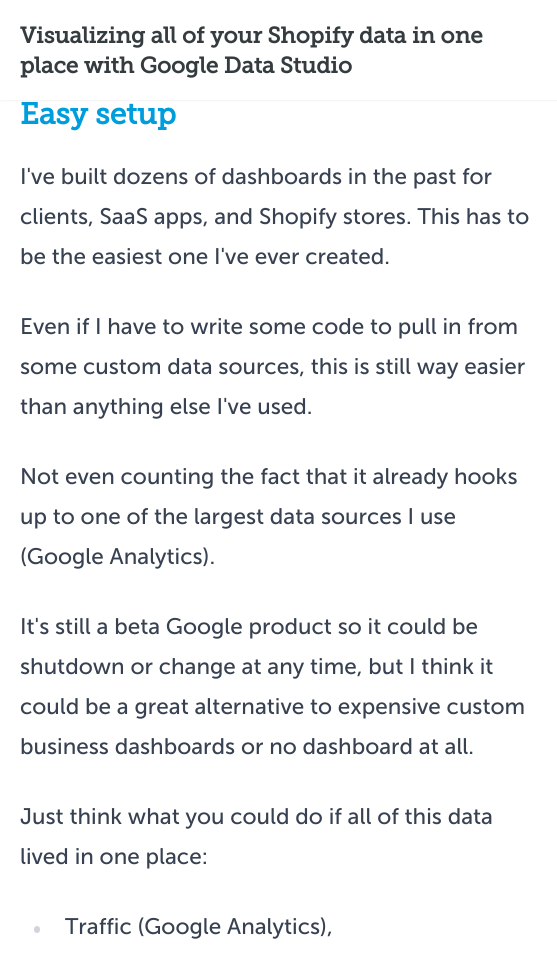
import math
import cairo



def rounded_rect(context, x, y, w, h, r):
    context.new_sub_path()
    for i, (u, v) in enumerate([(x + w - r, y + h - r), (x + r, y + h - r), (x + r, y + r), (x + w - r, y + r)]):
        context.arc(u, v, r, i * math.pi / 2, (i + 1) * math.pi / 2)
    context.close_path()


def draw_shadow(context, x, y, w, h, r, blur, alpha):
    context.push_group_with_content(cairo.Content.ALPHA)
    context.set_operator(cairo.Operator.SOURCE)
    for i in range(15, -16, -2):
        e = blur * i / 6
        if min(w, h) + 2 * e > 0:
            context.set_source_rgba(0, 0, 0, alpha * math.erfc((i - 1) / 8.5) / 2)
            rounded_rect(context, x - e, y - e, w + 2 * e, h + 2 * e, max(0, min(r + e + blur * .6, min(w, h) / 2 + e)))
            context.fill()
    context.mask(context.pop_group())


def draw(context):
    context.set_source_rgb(1, 1, 1)
    context.paint()
    context.set_source_rgb(0, 0, 0)
    draw_shadow(context, 0, 1, 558, 100, 0, 1, 0.05)
    context.set_source_rgb(1, 1, 1)
    context.rectangle(0, 0, 557, 100)
    context.fill()
    context.set_source_rgb(209 / 255, 213 / 255, 219 / 255)
    rounded_rect(context, 34, 926, 6, 7, 3)
    context.fill()
    context.select_font_face("Museo Slab", cairo.FontSlant.NORMAL, cairo.FontWeight.BOLD)
    context.set_font_size(22.5)
    context.set_source_rgb(53 / 255, 60 / 255, 63 / 255)
    context.move_to(20, 43)
    context.show_text("Visualizing all of your Shopify data in one")
    context.move_to(20, 73)
    context.show_text("place with Google Data Studio")
    context.set_font_size(30)
    context.set_source_rgb(0, 157 / 255, 220 / 255)
    context.move_to(20, 124)
    context.show_text("Easy setup")
    context.select_font_face("Museo Sans")
    context.set_font_size(22.5)
    context.set_source_rgb(55 / 255, 65 / 255, 81 / 255)
    context.move_to(20, 184)
    context.show_text("I've built dozens of dashboards in the past for")
    context.move_to(20, 224)
    context.show_text("clients, SaaS apps, and Shopify stores. This has to")
    context.move_to(20, 264)
    context.show_text("be the easiest one I've ever created.")
    context.move_to(20, 334)
    context.show_text("Even if I have to write some code to pull in from")
    context.move_to(20, 374)
    context.show_text("some custom data sources, this is still way easier")
    context.move_to(20, 414)
    context.show_text("than anything else I've used.")
    context.move_to(20, 484)
    context.show_text("Not even counting the fact that it already hooks")
    context.move_to(20, 524)
    context.show_text("up to one of the largest data sources I use")
    context.move_to(20, 564)
    context.show_text("(Google Analytics).")
    context.move_to(20, 634)
    context.show_text("It's still a beta Google product so it could be")
    context.move_to(20, 674)
    context.show_text("shutdown or change at any time, but I think it")
    context.move_to(20, 714)
    context.show_text("could be a great alternative to expensive custom")
    context.move_to(20, 754)
    context.show_text("business dashboards or no dashboard at all.")
    context.move_to(20, 824)
    context.show_text("Just think what you could do if all of this data")
    context.move_to(20, 864)
    context.show_text("lived in one place:")
    context.move_to(65, 934)
    context.show_text("Traffic (Google Analytics),")


surface = cairo.ImageSurface(cairo.Format.RGB24, 557, 958)
context = cairo.Context(surface)
options = cairo.FontOptions()
options.set_hint_metrics(cairo.HintMetrics.OFF)
options.set_hint_style(cairo.HintStyle.NONE)
context.set_font_options(options)
context.set_miter_limit(4)
draw(context)
surface.write_to_png("out.png")
